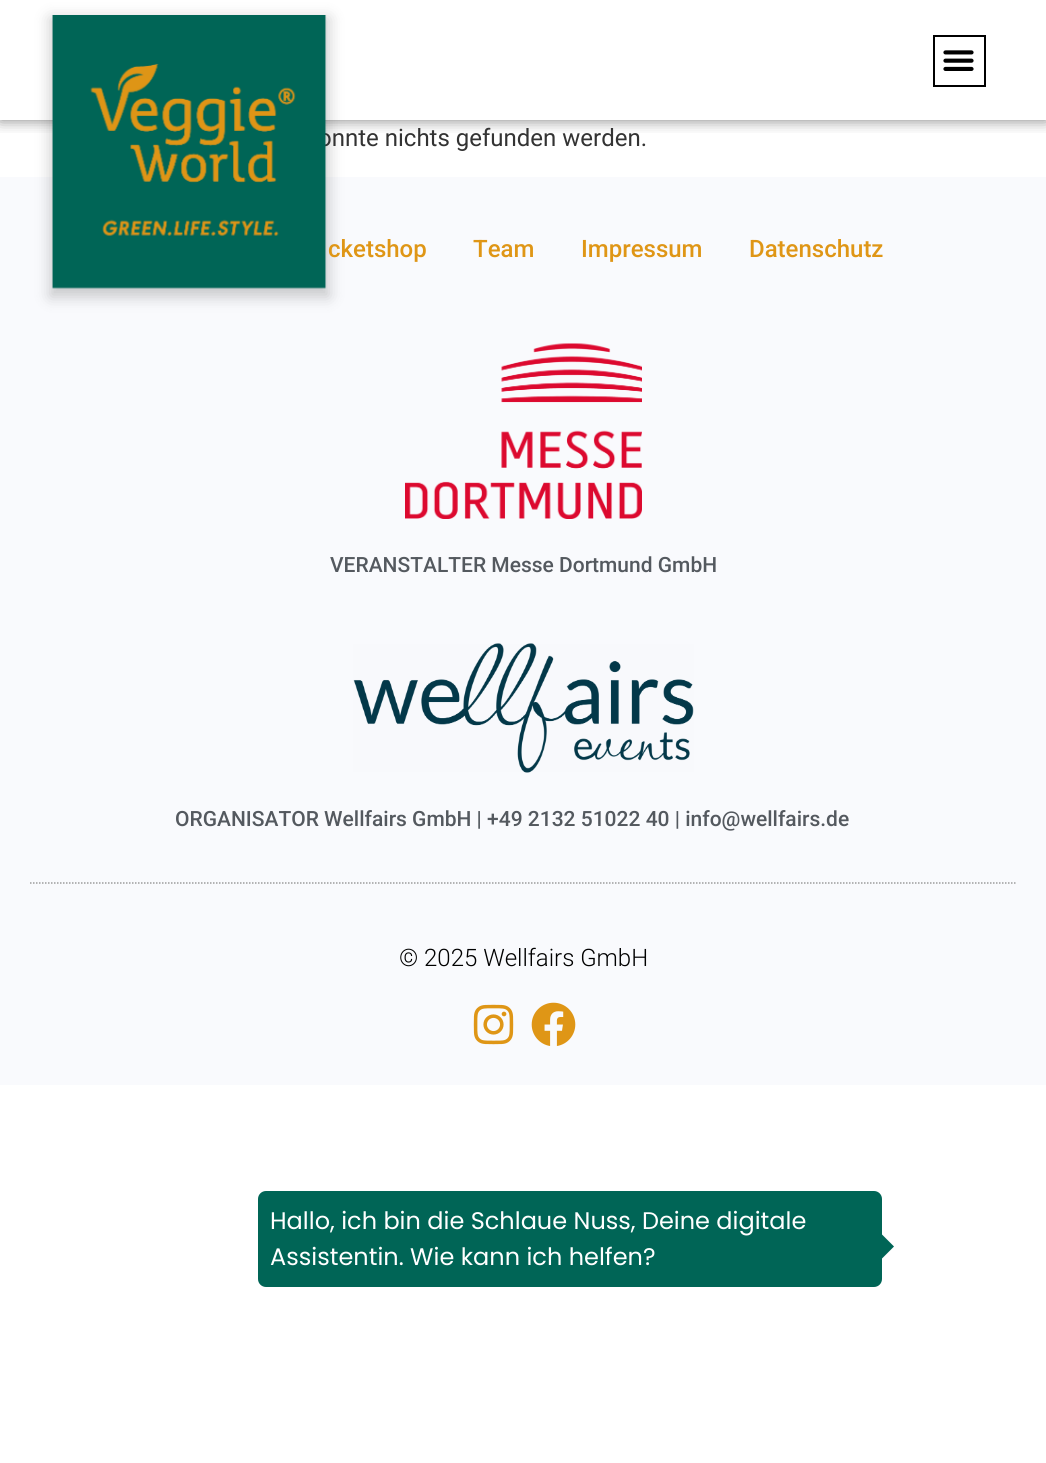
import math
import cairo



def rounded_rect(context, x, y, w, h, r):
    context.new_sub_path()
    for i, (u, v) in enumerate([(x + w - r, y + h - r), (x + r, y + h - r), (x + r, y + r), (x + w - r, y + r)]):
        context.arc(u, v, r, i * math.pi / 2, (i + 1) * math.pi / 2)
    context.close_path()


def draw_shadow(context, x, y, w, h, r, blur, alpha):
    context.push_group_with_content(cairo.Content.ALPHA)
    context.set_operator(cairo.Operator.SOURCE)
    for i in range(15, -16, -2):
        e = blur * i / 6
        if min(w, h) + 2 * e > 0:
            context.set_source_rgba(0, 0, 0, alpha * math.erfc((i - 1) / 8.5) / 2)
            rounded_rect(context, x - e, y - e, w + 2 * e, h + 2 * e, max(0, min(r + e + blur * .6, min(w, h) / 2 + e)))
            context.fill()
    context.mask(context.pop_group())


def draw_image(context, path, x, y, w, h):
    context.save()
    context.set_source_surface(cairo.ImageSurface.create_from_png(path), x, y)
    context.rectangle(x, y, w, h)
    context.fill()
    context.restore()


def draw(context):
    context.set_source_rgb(1, 1, 1)
    context.paint()
    context.save()
    context.rectangle(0, 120, 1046, 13)
    context.clip()
    context.set_source_rgb(0, 0, 0)
    draw_shadow(context, 0, 0, 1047, 120, 0, 7.5, 0.5)
    context.restore()
    context.set_source_rgb(249 / 255, 250 / 255, 253 / 255)
    context.rectangle(0, 177, 1046, 908)
    context.fill()
    context.set_source_rgb(0, 0, 0)
    draw_shadow(context, 50, 18, 279, 279, 0, 7.5, 0.2)
    context.rectangle(934, 36, 51, 50)
    context.set_source_rgb(0, 0, 0)
    context.stroke()
    draw_image(context, "images/2.png", 943, 50, 31, 21)
    context.new_path()
    context.move_to(30, 883)
    context.line_to(1017, 883)
    context.set_source_rgb(155 / 255, 155 / 255, 155 / 255)
    context.set_line_width(1.5)
    context.set_dash([1.5, 1.5])
    context.stroke()
    draw_image(context, "images/3.png", 405, 343, 237, 176)
    draw_image(context, "images/4.png", 353, 643, 341, 130)
    draw_image(context, "images/5.png", 473, 1004, 41, 41)
    draw_image(context, "images/6.png", 531, 1002, 45, 44)
    context.set_source_rgb(0, 101 / 255, 86 / 255)
    rounded_rect(context, 258, 1191, 624, 96, 8)
    context.fill()
    context.new_path()
    context.move_to(882, 1258.5)
    context.line_to(882, 1234.5)
    context.line_to(894, 1246.5)
    context.close_path()
    context.fill()
    context.select_font_face("Roboto")
    context.set_font_size(24)
    context.set_source_rgb(51 / 255, 51 / 255, 51 / 255)
    context.move_to(318, 146)
    context.show_text("onnte nichts gefunden werden.")
    draw_image(context, "images/1.png", 52, 15, 275, 274)
    context.select_font_face("Roboto Medium")
    context.set_source_rgb(223 / 255, 150 / 255, 22 / 255)
    context.move_to(328, 257)
    context.show_text("cketshop")
    context.move_to(473, 257)
    context.show_text("Team")
    context.move_to(581, 257)
    context.show_text("Impressum")
    context.move_to(749, 257)
    context.show_text("Datenschutz")
    context.set_font_size(21)
    context.set_source_rgb(84 / 255, 89 / 255, 95 / 255)
    context.move_to(330, 572)
    context.show_text("VERANSTALTER Messe Dortmund GmbH")
    context.move_to(175, 826)
    context.show_text("ORGANISATOR Wellfairs GmbH | +49 2132 51022 40 | info@wellfairs.de")
    context.select_font_face("Roboto Light")
    context.set_font_size(24)
    context.set_source_rgb(0, 0, 0)
    context.move_to(399, 966)
    context.show_text("© 2025 Wellfairs GmbH")
    context.select_font_face("Poppins")
    context.set_source_rgb(1, 1, 1)
    context.move_to(270, 1229)
    context.show_text("Hallo, ich bin die Schlaue Nuss, Deine digitale")
    context.move_to(270, 1265)
    context.show_text("Assistentin. Wie kann ich helfen?")


surface = cairo.ImageSurface(cairo.Format.RGB24, 1046, 1463)
context = cairo.Context(surface)
options = cairo.FontOptions()
options.set_hint_metrics(cairo.HintMetrics.OFF)
options.set_hint_style(cairo.HintStyle.NONE)
context.set_font_options(options)
context.set_miter_limit(4)
draw(context)
surface.write_to_png("out.png")
